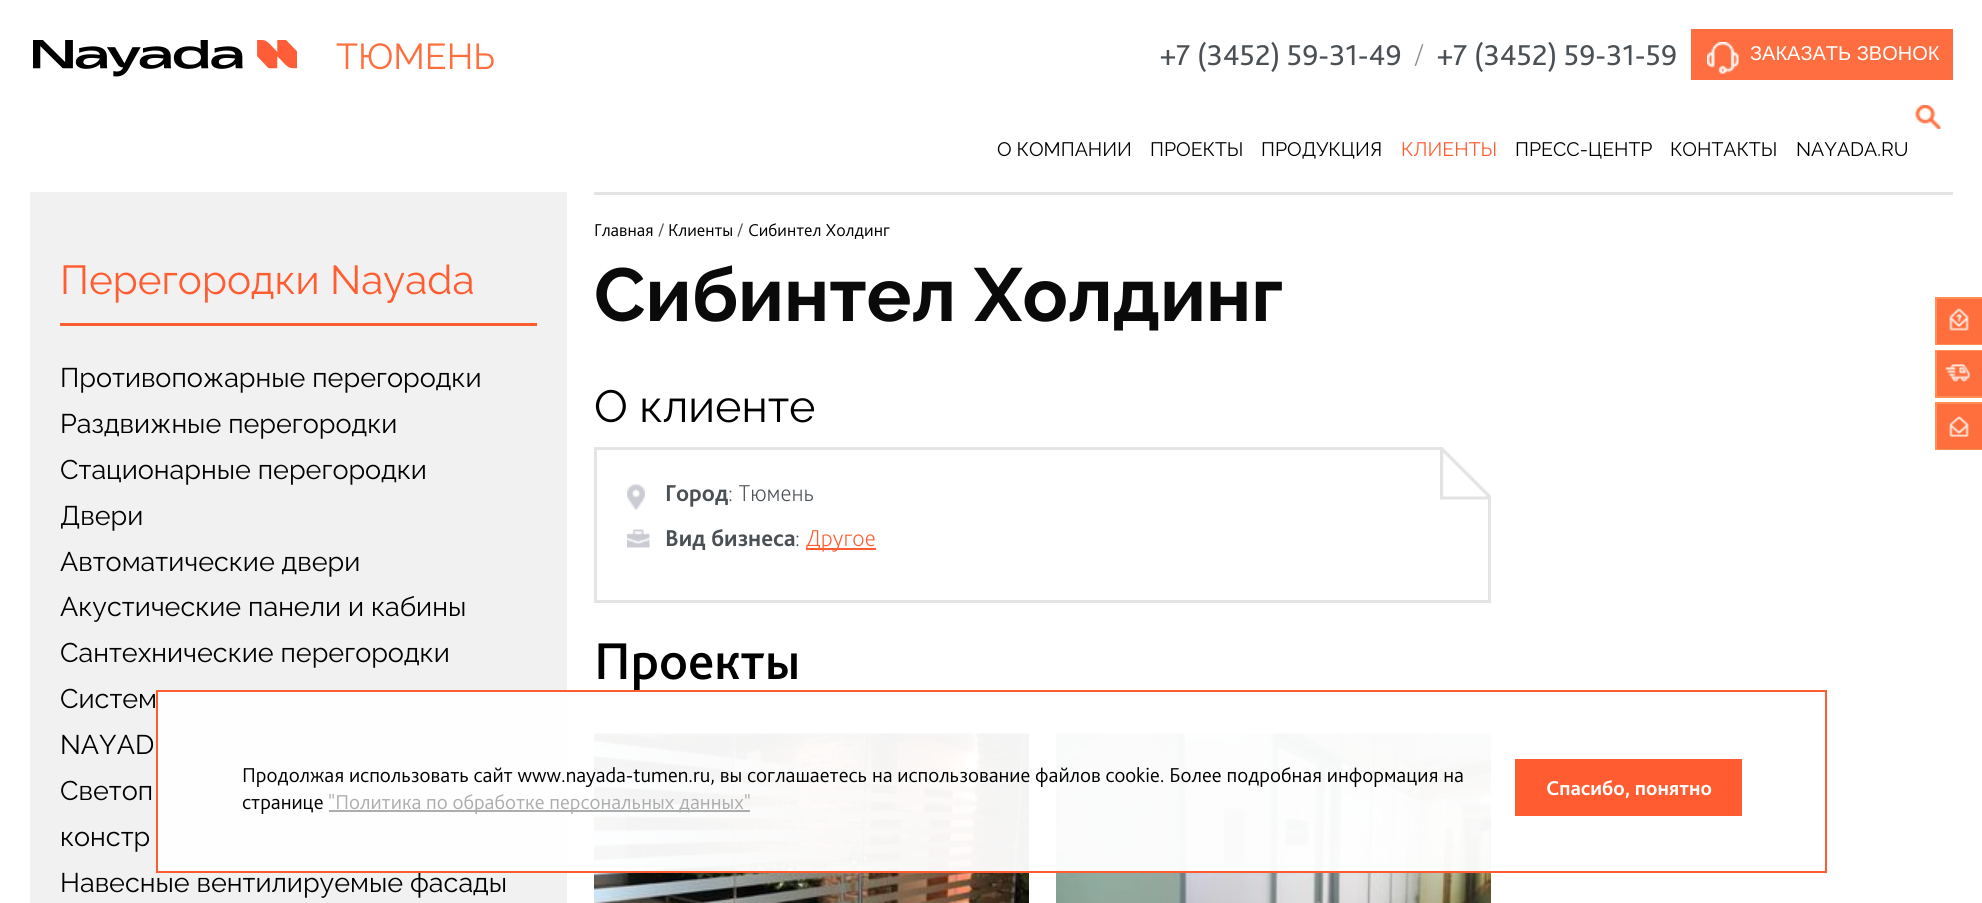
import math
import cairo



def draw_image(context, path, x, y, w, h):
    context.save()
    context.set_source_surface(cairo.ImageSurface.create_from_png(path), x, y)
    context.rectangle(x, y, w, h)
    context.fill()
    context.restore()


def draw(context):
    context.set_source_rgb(1, 1, 1)
    context.paint()
    draw_image(context, "images/1.png", 33, 40, 264, 37)
    context.set_source_rgb(1, 110 / 255, 64 / 255)
    context.rectangle(1691, 29, 262, 51)
    context.fill()
    draw_image(context, "images/2.png", 1707, 42, 32, 32)
    draw_image(context, "images/3.png", 1915, 105, 26, 24)
    context.set_source_rgb(241 / 255, 241 / 255, 241 / 255)
    context.rectangle(30, 192, 537, 711)
    context.fill()
    context.set_source_rgb(1, 93 / 255, 49 / 255)
    context.rectangle(60, 323, 477, 3)
    context.fill()
    context.set_source_rgb(229 / 255, 228 / 255, 228 / 255)
    context.rectangle(594, 192, 1359, 3)
    context.fill()
    context.rectangle(595.5, 448.5, 894, 153)
    context.set_line_width(3)
    context.stroke()
    draw_image(context, "images/4.png", 627, 484, 18, 26)
    draw_image(context, "images/5.png", 1440, 447, 51, 53)
    draw_image(context, "images/6.png", 627, 529, 23, 19)
    context.set_source_rgb(1, 93 / 255, 49 / 255)
    context.rectangle(806, 548, 70, 2)
    context.fill()
    draw_image(context, "images/7.png", 594, 733, 435, 170)
    draw_image(context, "images/8.png", 1056, 733, 435, 170)
    context.rectangle(1936, 298, 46, 46)
    context.set_source_rgb(1, 143 / 255, 85 / 255)
    context.set_line_width(2)
    context.stroke()
    context.set_source_rgb(1, 110 / 255, 61 / 255)
    context.rectangle(1937, 299, 45, 45)
    context.fill()
    draw_image(context, "images/9.png", 1949, 308, 20, 23)
    context.rectangle(1936, 351, 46, 46)
    context.set_source_rgb(1, 143 / 255, 85 / 255)
    context.stroke()
    context.set_source_rgb(1, 110 / 255, 61 / 255)
    context.rectangle(1937, 351, 45, 45)
    context.fill()
    draw_image(context, "images/10.png", 1945, 364, 25, 18)
    context.rectangle(1936, 403, 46, 46)
    context.set_source_rgb(1, 143 / 255, 85 / 255)
    context.stroke()
    context.set_source_rgb(1, 110 / 255, 61 / 255)
    context.rectangle(1937, 404, 45, 45)
    context.fill()
    draw_image(context, "images/11.png", 1949, 416, 20, 21)
    context.set_source_rgba(1, 1, 1, 0.95)
    context.rectangle(158, 692, 1333, 179)
    context.fill()
    context.select_font_face("Raleway")
    context.set_font_size(36)
    context.set_source_rgb(1, 110 / 255, 61 / 255)
    context.move_to(336, 69)
    context.show_text("ТЮМЕНЬ")
    context.select_font_face("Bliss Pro")
    context.set_font_size(30)
    context.set_source_rgb(75 / 255, 80 / 255, 85 / 255)
    context.move_to(1160, 65)
    context.show_text("+7 (3452) 59-31-49")
    context.select_font_face("Bliss Pro ExtraLight")
    context.set_source_rgb(140 / 255, 142 / 255, 145 / 255)
    context.move_to(1414, 65)
    context.show_text("/")
    context.select_font_face("Bliss Pro")
    context.set_source_rgb(75 / 255, 80 / 255, 85 / 255)
    context.move_to(1437, 65)
    context.show_text("+7 (3452) 59-31-59")
    context.select_font_face("Liberation Sans")
    context.set_font_size(20)
    context.set_source_rgb(1, 1, 1)
    context.move_to(1750, 60)
    context.show_text("ЗАКАЗАТЬ ЗВОНОК")
    context.select_font_face("Raleway")
    context.set_font_size(19.5)
    context.set_source_rgb(0, 0, 0)
    context.move_to(997, 156)
    context.show_text("О КОМПАНИИ")
    context.move_to(1150, 156)
    context.show_text("ПРОЕКТЫ")
    context.move_to(1261, 156)
    context.show_text("ПРОДУКЦИЯ")
    context.set_source_rgb(1, 93 / 255, 49 / 255)
    context.move_to(1401, 156)
    context.show_text("КЛИЕНТЫ")
    context.set_source_rgb(0, 0, 0)
    context.move_to(1515, 156)
    context.show_text("ПРЕСС-ЦЕНТР")
    context.move_to(1670, 156)
    context.show_text("КОНТАКТЫ")
    context.move_to(1796, 156)
    context.show_text("NAYADA.RU")
    context.set_font_size(40.5)
    context.set_source_rgb(1, 93 / 255, 49 / 255)
    context.move_to(60, 294)
    context.show_text("Перегородки Nayada")
    context.set_font_size(27)
    context.set_source_rgb(0, 0, 0)
    context.move_to(60, 387)
    context.show_text("Противопожарные перегородки")
    context.move_to(60, 433)
    context.show_text("Раздвижные перегородки")
    context.move_to(60, 479)
    context.show_text("Стационарные перегородки")
    context.move_to(60, 525)
    context.show_text("Двери")
    context.move_to(60, 571)
    context.show_text("Автоматические двери")
    context.move_to(60, 616)
    context.show_text("Акустические панели и кабины")
    context.move_to(60, 662)
    context.show_text("Сантехнические перегородки")
    context.move_to(60, 708)
    context.show_text("Систем")
    context.move_to(60, 754)
    context.show_text("NAYAD")
    context.move_to(60, 800)
    context.show_text("Светоп")
    context.move_to(60, 846)
    context.show_text("констр")
    context.move_to(60, 892)
    context.show_text("Навесные вентилируемые фасады")
    context.select_font_face("Bliss Pro Light")
    context.set_font_size(18)
    context.move_to(594, 236)
    context.show_text("Главная")
    context.set_source_rgb(75 / 255, 80 / 255, 85 / 255)
    context.move_to(658, 236)
    context.show_text("/")
    context.set_source_rgb(0, 0, 0)
    context.move_to(668, 236)
    context.show_text("Клиенты")
    context.set_source_rgb(75 / 255, 80 / 255, 85 / 255)
    context.move_to(737, 236)
    context.show_text("/")
    context.set_source_rgb(0, 0, 0)
    context.move_to(748, 236)
    context.show_text("Сибинтел Холдинг")
    context.select_font_face("Raleway", cairo.FontSlant.NORMAL, cairo.FontWeight.BOLD)
    context.set_font_size(75)
    context.set_source_rgb(10 / 255, 10 / 255, 10 / 255)
    context.move_to(594, 321)
    context.show_text("Сибинтел Холдинг")
    context.select_font_face("Raleway")
    context.set_font_size(45)
    context.set_source_rgb(0, 0, 0)
    context.move_to(594, 422)
    context.show_text("О клиенте")
    context.select_font_face("Bliss Pro", cairo.FontSlant.NORMAL, cairo.FontWeight.BOLD)
    context.set_font_size(24)
    context.set_source_rgb(75 / 255, 80 / 255, 85 / 255)
    context.move_to(665, 501)
    context.show_text("Город")
    context.select_font_face("Bliss Pro ExtraLight")
    context.move_to(728, 501)
    context.show_text(": Тюмень")
    context.select_font_face("Bliss Pro", cairo.FontSlant.NORMAL, cairo.FontWeight.BOLD)
    context.move_to(665, 546)
    context.show_text("Вид бизнеса")
    context.select_font_face("Bliss Pro ExtraLight")
    context.move_to(795, 546)
    context.show_text(":")
    context.set_source_rgb(1, 93 / 255, 49 / 255)
    context.move_to(806, 546)
    context.show_text("Другое")
    context.select_font_face("Bliss Pro Medium")
    context.set_font_size(54)
    context.set_source_rgb(0, 0, 0)
    context.move_to(594, 679)
    context.show_text("Проекты")
    context.rectangle(157, 691, 1669, 181)
    context.set_source_rgb(1, 93 / 255, 49 / 255)
    context.stroke()
    context.select_font_face("Bliss Pro Light")
    context.set_font_size(21)
    context.set_source_rgb(0, 0, 0)
    context.move_to(242, 782)
    context.show_text("Продолжая использовать сайт www.nayada-tumen.ru, вы соглашаетесь на использование файлов cookie. Более подробная информация на")
    context.move_to(242, 809)
    context.show_text("странице")
    context.set_source_rgb(173 / 255, 173 / 255, 173 / 255)
    context.rectangle(329, 810, 421, 2)
    context.fill()
    context.move_to(328, 809)
    context.show_text("\"Политика по обработке персональных данных\"")
    context.set_source_rgb(1, 93 / 255, 49 / 255)
    context.rectangle(1515, 759, 227, 57)
    context.fill()
    context.select_font_face("Bliss Pro", cairo.FontSlant.NORMAL, cairo.FontWeight.BOLD)
    context.set_source_rgb(1, 1, 1)
    context.move_to(1546, 795)
    context.show_text("Спасибо, понятно")


surface = cairo.ImageSurface(cairo.Format.RGB24, 1982, 903)
context = cairo.Context(surface)
options = cairo.FontOptions()
options.set_hint_metrics(cairo.HintMetrics.OFF)
options.set_hint_style(cairo.HintStyle.NONE)
context.set_font_options(options)
context.set_miter_limit(4)
draw(context)
surface.write_to_png("out.png")
